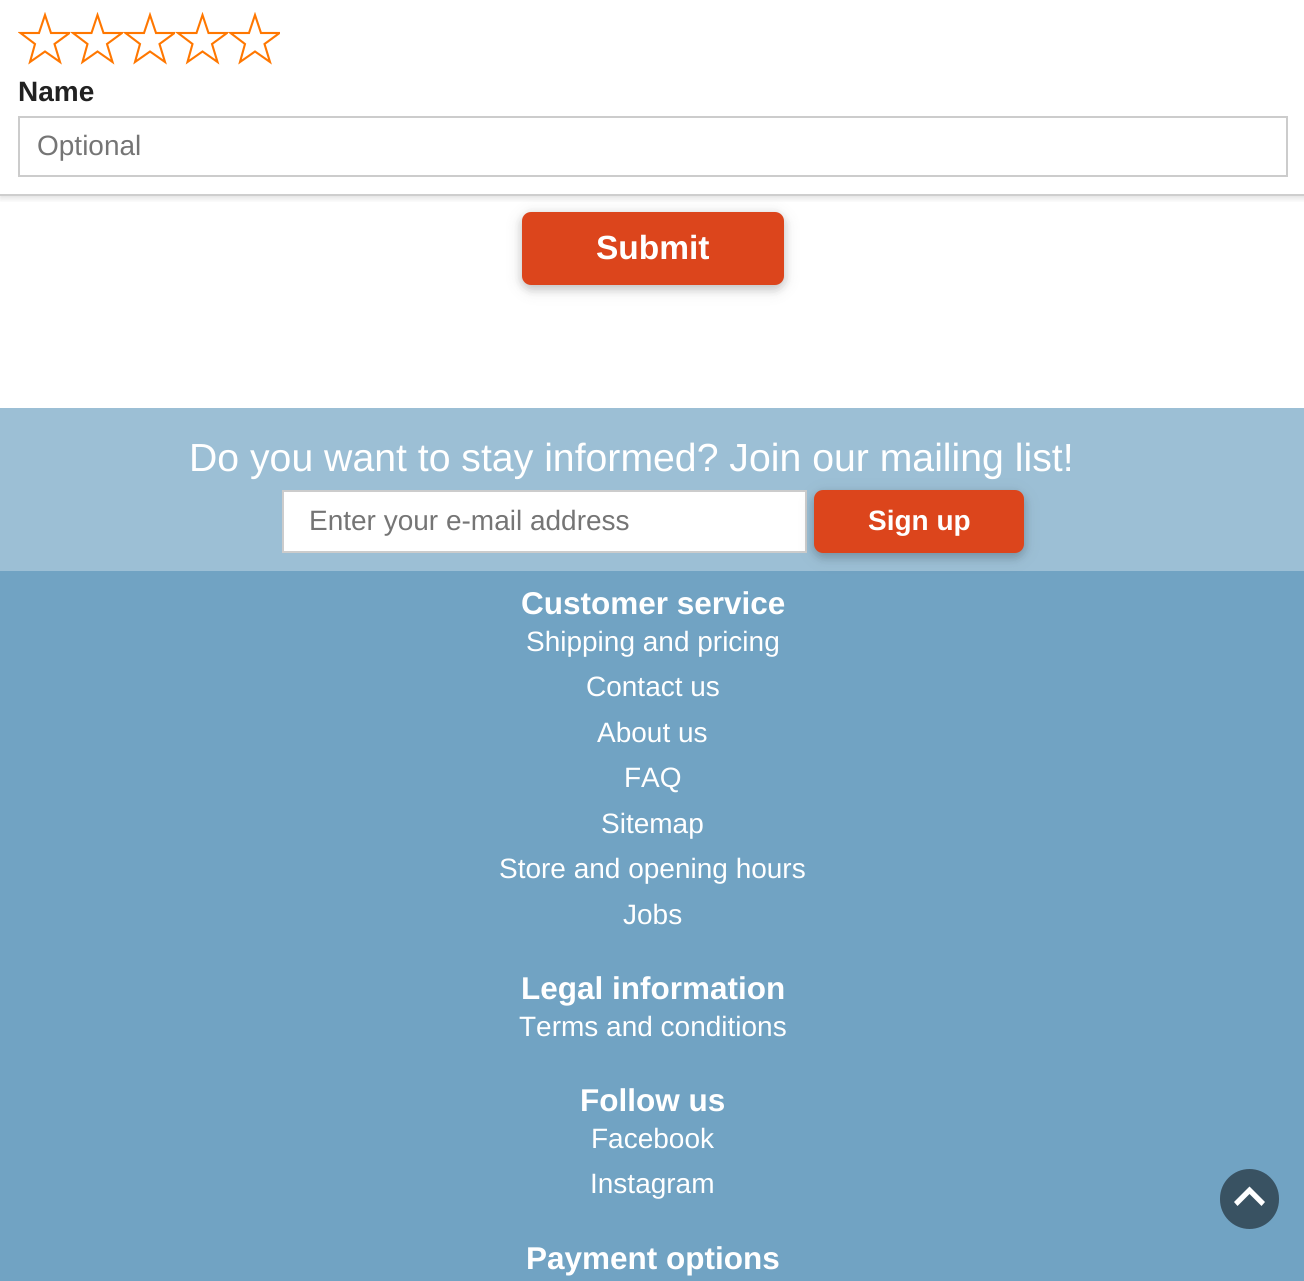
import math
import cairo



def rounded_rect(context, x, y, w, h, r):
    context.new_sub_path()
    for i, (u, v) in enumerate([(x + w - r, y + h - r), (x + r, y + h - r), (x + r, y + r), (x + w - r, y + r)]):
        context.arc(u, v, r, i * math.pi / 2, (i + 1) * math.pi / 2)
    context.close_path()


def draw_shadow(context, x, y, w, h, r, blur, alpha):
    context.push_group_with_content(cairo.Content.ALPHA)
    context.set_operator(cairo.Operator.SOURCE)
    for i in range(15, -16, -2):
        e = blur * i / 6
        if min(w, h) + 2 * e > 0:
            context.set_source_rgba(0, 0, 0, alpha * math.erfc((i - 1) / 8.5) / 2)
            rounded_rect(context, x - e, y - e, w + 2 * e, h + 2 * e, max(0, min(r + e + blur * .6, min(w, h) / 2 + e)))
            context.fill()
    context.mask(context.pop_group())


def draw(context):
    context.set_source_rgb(1, 1, 1)
    context.paint()
    context.save()
    context.rectangle(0, 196, 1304, 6)
    context.clip()
    context.set_source_rgb(0, 0, 0)
    draw_shadow(context, 0, -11, 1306, 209, 0, 3.5, 0.14)
    context.restore()
    context.set_source_rgb(206 / 255, 206 / 255, 206 / 255)
    context.rectangle(0, 194, 1304, 2)
    context.fill()
    context.save()
    context.rectangle(18, 12, 52, 53)
    context.clip()
    context.new_path()
    context.move_to(45, 15)
    context.line_to(51, 33)
    context.line_to(69.5, 33)
    context.line_to(54.5, 44)
    context.line_to(60, 62)
    context.line_to(45, 51.5)
    context.line_to(30, 62)
    context.line_to(35, 44)
    context.line_to(20.5, 33)
    context.line_to(39, 33)
    context.close_path()
    context.set_source_rgb(1, 119 / 255, 0)
    context.set_line_width(2.1)
    context.stroke()
    context.restore()
    context.save()
    context.rectangle(70, 12, 53, 53)
    context.clip()
    context.new_path()
    context.move_to(97.5, 15)
    context.line_to(103.5, 33)
    context.line_to(122, 33)
    context.line_to(107, 44)
    context.line_to(112.5, 62)
    context.line_to(97.5, 51.5)
    context.line_to(82.5, 62)
    context.line_to(87.5, 44)
    context.line_to(73, 33)
    context.line_to(91.5, 33)
    context.close_path()
    context.set_source_rgb(1, 119 / 255, 0)
    context.set_line_width(2.1)
    context.stroke()
    context.restore()
    context.save()
    context.rectangle(123, 12, 52, 53)
    context.clip()
    context.new_path()
    context.move_to(150, 15)
    context.line_to(156, 33)
    context.line_to(174.5, 33)
    context.line_to(159.5, 44)
    context.line_to(165, 62)
    context.line_to(150, 51.5)
    context.line_to(135, 62)
    context.line_to(140, 44)
    context.line_to(125.5, 33)
    context.line_to(144, 33)
    context.close_path()
    context.set_source_rgb(1, 119 / 255, 0)
    context.set_line_width(2.1)
    context.stroke()
    context.restore()
    context.save()
    context.rectangle(175, 12, 53, 53)
    context.clip()
    context.new_path()
    context.move_to(202.5, 15)
    context.line_to(208.5, 33)
    context.line_to(227, 33)
    context.line_to(212, 44)
    context.line_to(217.5, 62)
    context.line_to(202.5, 51.5)
    context.line_to(187.5, 62)
    context.line_to(192.5, 44)
    context.line_to(178, 33)
    context.line_to(196.5, 33)
    context.close_path()
    context.set_source_rgb(1, 119 / 255, 0)
    context.set_line_width(2.1)
    context.stroke()
    context.restore()
    context.save()
    context.rectangle(228, 12, 52, 53)
    context.clip()
    context.new_path()
    context.move_to(255, 15)
    context.line_to(261, 33)
    context.line_to(279.5, 33)
    context.line_to(264.5, 44)
    context.line_to(270, 62)
    context.line_to(255, 51.5)
    context.line_to(240, 62)
    context.line_to(245, 44)
    context.line_to(230.5, 33)
    context.line_to(249, 33)
    context.close_path()
    context.set_source_rgb(1, 119 / 255, 0)
    context.set_line_width(2.1)
    context.stroke()
    context.restore()
    context.rectangle(19, 117, 1268, 59)
    context.set_source_rgb(204 / 255, 204 / 255, 204 / 255)
    context.stroke()
    context.set_source_rgb(0, 0, 0)
    draw_shadow(context, 522, 215, 262, 74, 9, 9, 0.12)
    draw_shadow(context, 522, 215, 262, 74, 9, 4.5, 0.16)
    context.set_source_rgb(220 / 255, 69 / 255, 28 / 255)
    rounded_rect(context, 522, 212, 262, 73, 9)
    context.fill()
    context.set_source_rgb(156 / 255, 191 / 255, 213 / 255)
    context.rectangle(0, 408, 1304, 163)
    context.fill()
    context.set_source_rgb(1, 1, 1)
    context.rectangle(283, 491, 523, 61)
    context.fill_preserve()
    context.set_source_rgb(204 / 255, 204 / 255, 204 / 255)
    context.stroke()
    context.set_source_rgb(113 / 255, 163 / 255, 195 / 255)
    context.rectangle(0, 571, 1304, 710)
    context.fill()
    context.set_source_rgb(0, 0, 0)
    draw_shadow(context, 814, 494, 210, 63, 9, 9, 0.12)
    draw_shadow(context, 814, 494, 210, 63, 9, 4.5, 0.16)
    context.set_source_rgb(220 / 255, 69 / 255, 28 / 255)
    rounded_rect(context, 814, 490, 210, 63, 9)
    context.fill()
    context.set_source_rgb(57 / 255, 82 / 255, 98 / 255)
    rounded_rect(context, 1220, 1169, 59, 60, 29.5)
    context.fill()
    context.set_source_rgb(1, 1, 1)
    context.new_path()
    context.move_to(1237.5, 1206)
    context.line_to(1234, 1202)
    context.line_to(1249.5, 1186.5)
    context.line_to(1265, 1202)
    context.line_to(1261.5, 1206)
    context.line_to(1249.5, 1194)
    context.close_path()
    context.fill()
    context.select_font_face("Liberation Sans", cairo.FontSlant.NORMAL, cairo.FontWeight.BOLD)
    context.set_font_size(28)
    context.set_source_rgb(33 / 255, 33 / 255, 33 / 255)
    context.move_to(18, 101)
    context.show_text("Name")
    context.select_font_face("Liberation Sans")
    context.set_source_rgb(117 / 255, 117 / 255, 117 / 255)
    context.move_to(37, 155)
    context.show_text("Optional")
    context.select_font_face("Liberation Sans", cairo.FontSlant.NORMAL, cairo.FontWeight.BOLD)
    context.set_font_size(33.5)
    context.set_source_rgb(1, 1, 1)
    context.move_to(596, 259)
    context.show_text("Submit")
    context.select_font_face("Liberation Sans")
    context.set_font_size(39.2)
    context.move_to(189, 471)
    context.show_text("Do you want to stay informed? Join our mailing list!")
    context.set_font_size(28)
    context.set_source_rgb(117 / 255, 117 / 255, 117 / 255)
    context.move_to(309, 530)
    context.show_text("Enter your e-mail address")
    context.select_font_face("Liberation Sans", cairo.FontSlant.NORMAL, cairo.FontWeight.BOLD)
    context.set_source_rgb(1, 1, 1)
    context.move_to(868, 530)
    context.show_text("Sign up")
    context.set_font_size(31.5)
    context.move_to(521, 614)
    context.show_text("Customer service")
    context.select_font_face("Liberation Sans")
    context.set_font_size(28)
    context.move_to(526, 651)
    context.show_text("Shipping and pricing")
    context.move_to(586, 696)
    context.show_text("Contact us")
    context.move_to(597, 742)
    context.show_text("About us")
    context.move_to(624, 787)
    context.show_text("FAQ")
    context.move_to(601, 833)
    context.show_text("Sitemap")
    context.move_to(499, 878)
    context.show_text("Store and opening hours")
    context.move_to(623, 924)
    context.show_text("Jobs")
    context.select_font_face("Liberation Sans", cairo.FontSlant.NORMAL, cairo.FontWeight.BOLD)
    context.set_font_size(31.5)
    context.move_to(521, 999)
    context.show_text("Legal information")
    context.select_font_face("Liberation Sans")
    context.set_font_size(28)
    context.move_to(519, 1036)
    context.show_text("Terms and conditions")
    context.select_font_face("Liberation Sans", cairo.FontSlant.NORMAL, cairo.FontWeight.BOLD)
    context.set_font_size(31.5)
    context.move_to(580, 1111)
    context.show_text("Follow us")
    context.select_font_face("Liberation Sans")
    context.set_font_size(28)
    context.move_to(591, 1148)
    context.show_text("Facebook")
    context.move_to(590, 1193)
    context.show_text("Instagram")
    context.select_font_face("Liberation Sans", cairo.FontSlant.NORMAL, cairo.FontWeight.BOLD)
    context.set_font_size(31.5)
    context.move_to(526, 1269)
    context.show_text("Payment options")


surface = cairo.ImageSurface(cairo.Format.RGB24, 1304, 1281)
context = cairo.Context(surface)
options = cairo.FontOptions()
options.set_hint_metrics(cairo.HintMetrics.OFF)
options.set_hint_style(cairo.HintStyle.NONE)
context.set_font_options(options)
context.set_miter_limit(4)
draw(context)
surface.write_to_png("out.png")
